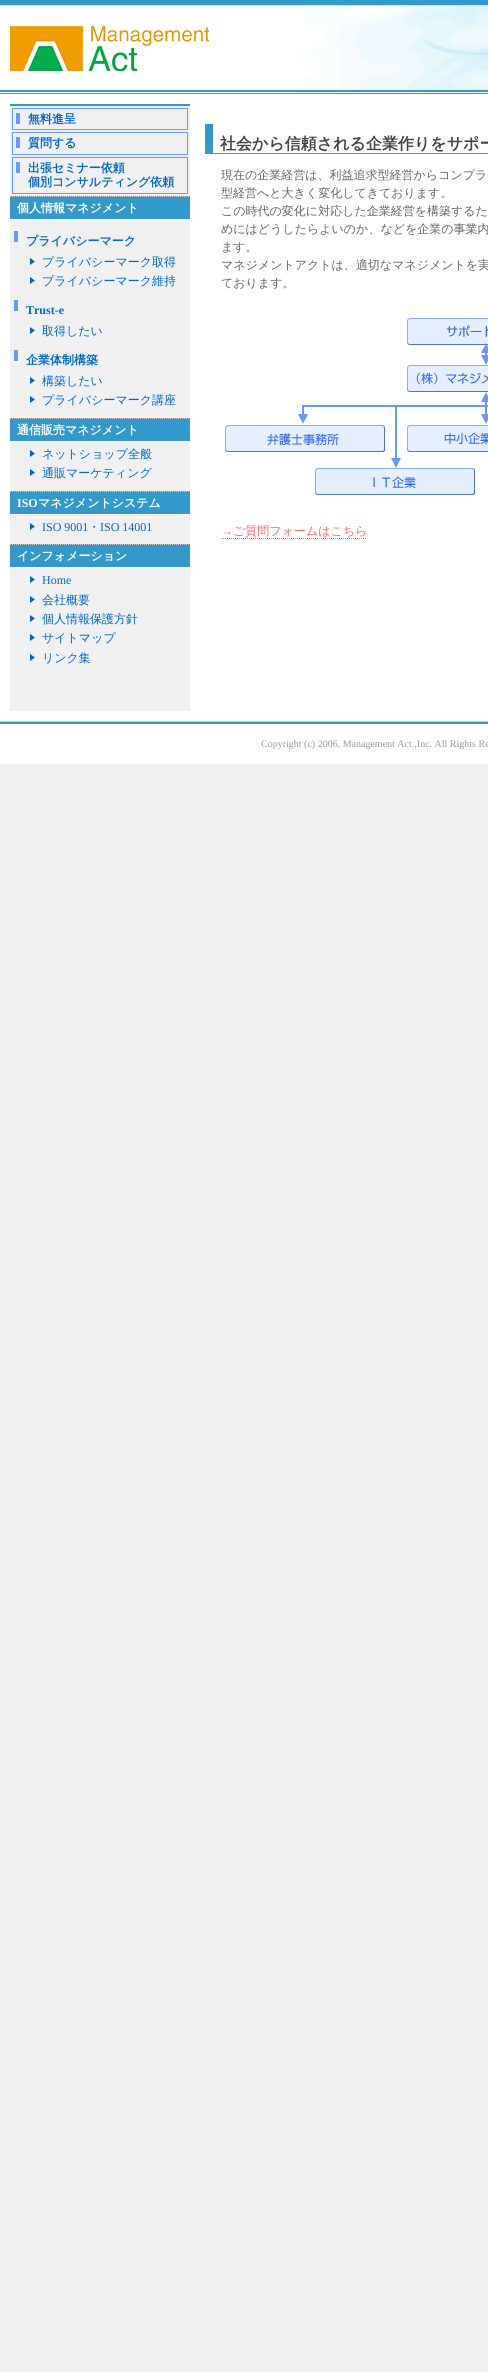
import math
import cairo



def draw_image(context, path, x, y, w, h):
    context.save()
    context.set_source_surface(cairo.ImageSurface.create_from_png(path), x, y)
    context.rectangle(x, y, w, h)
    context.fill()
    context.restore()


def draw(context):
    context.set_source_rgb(240 / 255, 240 / 255, 240 / 255)
    context.paint()
    context.set_source_rgb(1, 1, 1)
    context.rectangle(0, 94, 488, 670)
    context.fill()
    draw_image(context, "images/1.png", 0, 0, 488, 94)
    context.set_source_rgb(240 / 255, 240 / 255, 240 / 255)
    context.rectangle(10, 106, 180, 605)
    context.fill()
    context.set_source_rgb(51 / 255, 153 / 255, 204 / 255)
    context.rectangle(10, 104, 180, 2)
    context.fill()
    context.rectangle(12.5, 108.5, 175, 21)
    context.set_source_rgb(102 / 255, 153 / 255, 1)
    context.set_line_width(1)
    context.stroke()
    context.rectangle(16, 113, 4, 11)
    context.fill()
    context.rectangle(12.5, 132.5, 175, 22)
    context.stroke()
    context.rectangle(16, 137, 4, 11)
    context.fill()
    context.rectangle(12.5, 157.5, 175, 36)
    context.stroke()
    context.rectangle(16, 162, 4, 11)
    context.fill()
    context.set_source_rgb(51 / 255, 153 / 255, 204 / 255)
    context.rectangle(10, 196, 180, 23)
    context.fill()
    context.new_path()
    context.move_to(10, 196.5)
    context.line_to(190, 196.5)
    context.set_source_rgb(204 / 255, 204 / 255, 204 / 255)
    context.set_dash([1, 1])
    context.stroke()
    context.set_source_rgb(1, 1, 1)
    context.rectangle(10, 219, 180, 1)
    context.fill()
    context.set_source_rgb(102 / 255, 153 / 255, 1)
    context.rectangle(14, 231, 4, 11)
    context.fill()
    draw_image(context, "images/2.png", 30, 258, 5, 7)
    draw_image(context, "images/2.png", 30, 277, 5, 7)
    context.rectangle(14, 300, 4, 11)
    context.fill()
    draw_image(context, "images/2.png", 30, 327, 5, 7)
    context.rectangle(14, 350, 4, 11)
    context.fill()
    draw_image(context, "images/2.png", 30, 377, 5, 7)
    draw_image(context, "images/2.png", 30, 396, 5, 7)
    context.set_source_rgb(51 / 255, 153 / 255, 204 / 255)
    context.rectangle(10, 418, 180, 23)
    context.fill()
    context.new_path()
    context.move_to(10, 418.5)
    context.line_to(190, 418.5)
    context.set_source_rgb(204 / 255, 204 / 255, 204 / 255)
    context.stroke()
    context.set_source_rgb(1, 1, 1)
    context.rectangle(10, 441, 180, 1)
    context.fill()
    draw_image(context, "images/2.png", 30, 450, 5, 7)
    draw_image(context, "images/2.png", 30, 469, 5, 7)
    context.set_source_rgb(51 / 255, 153 / 255, 204 / 255)
    context.rectangle(10, 491, 180, 23)
    context.fill()
    context.new_path()
    context.move_to(10, 491.5)
    context.line_to(190, 491.5)
    context.set_source_rgb(204 / 255, 204 / 255, 204 / 255)
    context.stroke()
    context.set_source_rgb(1, 1, 1)
    context.rectangle(10, 514, 180, 1)
    context.fill()
    draw_image(context, "images/2.png", 30, 523, 5, 7)
    context.set_source_rgb(51 / 255, 153 / 255, 204 / 255)
    context.rectangle(10, 544, 180, 23)
    context.fill()
    context.new_path()
    context.move_to(10, 544.5)
    context.line_to(190, 544.5)
    context.set_source_rgb(204 / 255, 204 / 255, 204 / 255)
    context.stroke()
    context.set_source_rgb(1, 1, 1)
    context.rectangle(10, 567, 180, 1)
    context.fill()
    draw_image(context, "images/2.png", 30, 576, 5, 7)
    draw_image(context, "images/2.png", 30, 596, 5, 7)
    draw_image(context, "images/2.png", 30, 615, 5, 7)
    draw_image(context, "images/2.png", 30, 634, 5, 7)
    draw_image(context, "images/2.png", 30, 654, 5, 7)
    context.set_source_rgb(51 / 255, 153 / 255, 204 / 255)
    context.rectangle(205, 153, 283, 1)
    context.fill()
    context.rectangle(205, 124, 8, 30)
    context.fill()
    draw_image(context, "images/3.png", 225, 318, 263, 177)
    context.new_path()
    context.move_to(221, 538.5)
    context.line_to(367, 538.5)
    context.set_source_rgb(1, 102 / 255, 102 / 255)
    context.stroke()
    context.set_source_rgb(204 / 255, 204 / 255, 204 / 255)
    context.rectangle(0, 721, 488, 1)
    context.fill()
    context.set_source_rgb(51 / 255, 153 / 255, 204 / 255)
    context.rectangle(0, 722, 488, 2)
    context.fill()
    context.select_font_face("WenQuanYi Zen Hei", cairo.FontSlant.NORMAL, cairo.FontWeight.BOLD)
    context.set_font_size(12)
    context.set_source_rgb(0, 102 / 255, 204 / 255)
    context.move_to(28, 123)
    context.show_text("無料進呈")
    context.move_to(28, 147)
    context.show_text("質問する")
    context.move_to(28, 172)
    context.show_text("出張セミナー依頼")
    context.move_to(28, 186)
    context.show_text("個別コンサルティング依頼")
    context.set_source_rgb(1, 1, 1)
    context.move_to(17, 212)
    context.show_text("個人情報マネジメント")
    context.set_source_rgb(0, 102 / 255, 204 / 255)
    context.move_to(26, 245)
    context.show_text("プライバシーマーク")
    context.select_font_face("WenQuanYi Zen Hei Medium")
    context.move_to(42, 266)
    context.show_text("プライバシーマーク取得")
    context.move_to(42, 285)
    context.show_text("プライバシーマーク維持")
    context.select_font_face("Liberation Serif", cairo.FontSlant.NORMAL, cairo.FontWeight.BOLD)
    context.move_to(26, 314)
    context.show_text("Trust-e")
    context.select_font_face("WenQuanYi Zen Hei Medium")
    context.move_to(42, 335)
    context.show_text("取得したい")
    context.select_font_face("WenQuanYi Zen Hei", cairo.FontSlant.NORMAL, cairo.FontWeight.BOLD)
    context.move_to(26, 364)
    context.show_text("企業体制構築")
    context.select_font_face("WenQuanYi Zen Hei Medium")
    context.move_to(42, 385)
    context.show_text("構築したい")
    context.move_to(42, 404)
    context.show_text("プライバシーマーク講座")
    context.select_font_face("WenQuanYi Zen Hei", cairo.FontSlant.NORMAL, cairo.FontWeight.BOLD)
    context.set_source_rgb(1, 1, 1)
    context.move_to(17, 434)
    context.show_text("通信販売マネジメント")
    context.select_font_face("WenQuanYi Zen Hei Medium")
    context.set_source_rgb(0, 102 / 255, 204 / 255)
    context.move_to(42, 458)
    context.show_text("ネットショップ全般")
    context.move_to(42, 477)
    context.show_text("通販マーケティング")
    context.select_font_face("Liberation Serif", cairo.FontSlant.NORMAL, cairo.FontWeight.BOLD)
    context.set_source_rgb(1, 1, 1)
    context.move_to(17, 507)
    context.show_text("ISO")
    context.select_font_face("WenQuanYi Zen Hei", cairo.FontSlant.NORMAL, cairo.FontWeight.BOLD)
    context.move_to(38, 507)
    context.show_text("マネジメントシステム")
    context.select_font_face("Liberation Serif")
    context.set_source_rgb(0, 102 / 255, 204 / 255)
    context.move_to(42, 531)
    context.show_text("ISO 9001")
    context.select_font_face("WenQuanYi Zen Hei Medium")
    context.move_to(88, 531)
    context.show_text("・")
    context.select_font_face("Liberation Serif")
    context.move_to(100, 531)
    context.show_text("ISO 14001")
    context.select_font_face("WenQuanYi Zen Hei", cairo.FontSlant.NORMAL, cairo.FontWeight.BOLD)
    context.set_source_rgb(1, 1, 1)
    context.move_to(17, 560)
    context.show_text("インフォメーション")
    context.select_font_face("Liberation Serif")
    context.set_source_rgb(0, 102 / 255, 204 / 255)
    context.move_to(42, 584)
    context.show_text("Home")
    context.select_font_face("WenQuanYi Zen Hei Medium")
    context.move_to(42, 604)
    context.show_text("会社概要")
    context.move_to(42, 623)
    context.show_text("個人情報保護方針")
    context.move_to(42, 642)
    context.show_text("サイトマップ")
    context.move_to(42, 662)
    context.show_text("リンク集")
    context.select_font_face("WenQuanYi Zen Hei", cairo.FontSlant.NORMAL, cairo.FontWeight.BOLD)
    context.set_font_size(16)
    context.set_source_rgb(68 / 255, 68 / 255, 68 / 255)
    context.move_to(220, 149)
    context.show_text("社会から信頼される企業作りをサポー")
    context.select_font_face("WenQuanYi Zen Hei Medium")
    context.set_font_size(12)
    context.set_source_rgb(102 / 255, 102 / 255, 102 / 255)
    context.move_to(221, 179)
    context.show_text("現在の企業経営は、利益追求型経営からコンプラ")
    context.move_to(221, 197)
    context.show_text("型経営へと大きく変化してきております。")
    context.move_to(221, 215)
    context.show_text("この時代の変化に対応した企業経営を構築するた")
    context.move_to(221, 233)
    context.show_text("めにはどうしたらよいのか、などを企業の事業内")
    context.move_to(221, 251)
    context.show_text("ます。")
    context.move_to(221, 269)
    context.show_text("マネジメントアクトは、適切なマネジメントを実")
    context.move_to(221, 287)
    context.show_text("ております。")
    context.select_font_face("Liberation Serif")
    context.set_source_rgb(1, 102 / 255, 102 / 255)
    context.move_to(221, 535)
    context.show_text("→")
    context.select_font_face("WenQuanYi Zen Hei Medium")
    context.move_to(233, 535)
    context.show_text("ご質問フォームはこちら")
    context.select_font_face("Liberation Serif")
    context.set_font_size(10)
    context.set_source_rgb(153 / 255, 153 / 255, 153 / 255)
    context.move_to(261, 747)
    context.show_text("Copyright (c) 2006, Management Act.,Inc. All Rights Re")


surface = cairo.ImageSurface(cairo.Format.RGB24, 488, 2372)
context = cairo.Context(surface)
options = cairo.FontOptions()
options.set_hint_metrics(cairo.HintMetrics.OFF)
options.set_hint_style(cairo.HintStyle.NONE)
context.set_font_options(options)
context.set_miter_limit(4)
draw(context)
surface.write_to_png("out.png")
